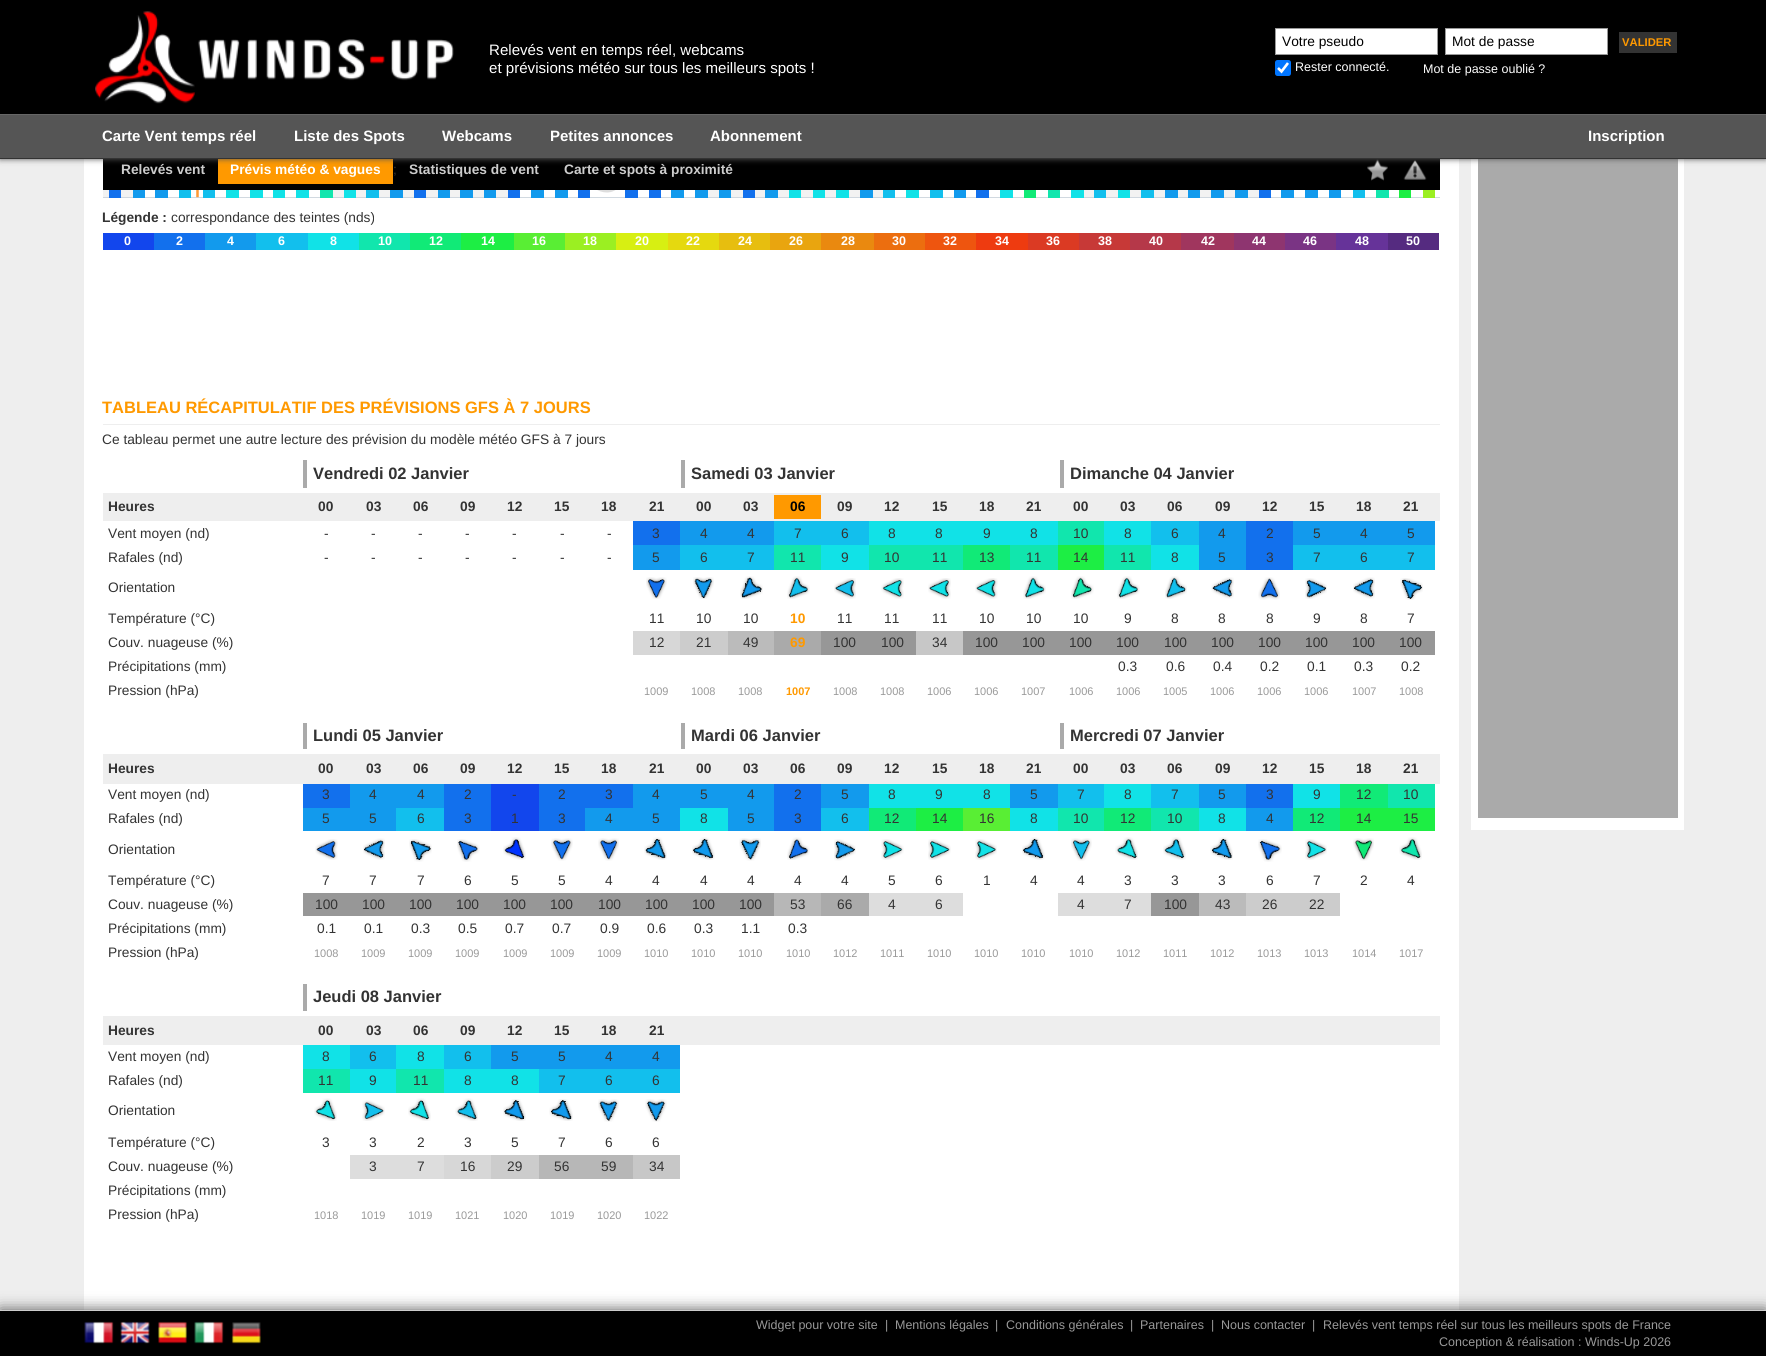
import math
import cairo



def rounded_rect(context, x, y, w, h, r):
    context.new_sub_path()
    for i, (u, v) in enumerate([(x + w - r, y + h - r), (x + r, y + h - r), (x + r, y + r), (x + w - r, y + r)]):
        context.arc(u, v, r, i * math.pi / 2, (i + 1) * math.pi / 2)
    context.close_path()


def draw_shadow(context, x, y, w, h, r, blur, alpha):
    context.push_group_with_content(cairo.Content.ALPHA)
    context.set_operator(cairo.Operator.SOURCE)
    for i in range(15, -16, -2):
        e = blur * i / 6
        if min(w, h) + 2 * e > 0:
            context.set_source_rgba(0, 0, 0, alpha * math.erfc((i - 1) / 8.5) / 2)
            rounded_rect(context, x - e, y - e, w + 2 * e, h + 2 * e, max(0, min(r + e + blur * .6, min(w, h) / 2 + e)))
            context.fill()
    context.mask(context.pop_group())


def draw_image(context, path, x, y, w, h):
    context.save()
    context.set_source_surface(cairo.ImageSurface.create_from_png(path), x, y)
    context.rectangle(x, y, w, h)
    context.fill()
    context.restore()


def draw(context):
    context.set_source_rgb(238 / 255, 238 / 255, 238 / 255)
    context.paint()
    context.set_source_rgb(1, 1, 1)
    context.rectangle(84, 159, 1375, 1151)
    context.fill()
    context.set_source_rgb(0, 0, 0)
    context.rectangle(103, 159, 1337, 31)
    context.fill()
    context.set_source_rgb(1, 153 / 255, 0)
    context.rectangle(218, 159, 175, 25)
    context.fill()
    draw_image(context, "images/2.png", 1367, 159, 21, 22)
    draw_image(context, "images/3.png", 1403, 160, 24, 20)
    context.set_source_rgb(1, 1, 1)
    context.rectangle(1471, 159, 213, 671)
    context.fill()
    context.set_source_rgb(170 / 255, 170 / 255, 170 / 255)
    context.rectangle(1478, 159, 200, 659)
    context.fill()
    context.set_source_rgb(85 / 255, 85 / 255, 85 / 255)
    draw_shadow(context, 0, 0, 1766, 159, 0, 3, 1)
    context.set_source_rgb(0, 0, 0)
    context.rectangle(0, 0, 1766, 114)
    context.fill()
    draw_image(context, "images/1.png", 95, 11, 359, 93)
    context.set_source_rgb(1, 1, 1)
    context.rectangle(1275.5, 28.5, 162, 26)
    context.fill_preserve()
    context.set_source_rgb(153 / 255, 153 / 255, 153 / 255)
    context.set_line_width(1)
    context.stroke()
    context.set_source_rgb(1, 1, 1)
    context.rectangle(1445.5, 28.5, 162, 26)
    context.fill_preserve()
    context.set_source_rgb(153 / 255, 153 / 255, 153 / 255)
    context.stroke()
    context.set_source_rgb(0, 117 / 255, 1)
    rounded_rect(context, 1275, 60, 16, 16, 2.5)
    context.fill()
    context.new_path()
    context.move_to(1278, 68)
    context.line_to(1281.5, 71.5)
    context.line_to(1288, 63)
    context.set_source_rgb(1, 1, 1)
    context.set_line_width(2.6)
    context.stroke()
    context.set_source_rgb(51 / 255, 51 / 255, 51 / 255)
    context.rectangle(1619, 32, 58, 21)
    context.fill()
    context.set_source_rgb(85 / 255, 85 / 255, 85 / 255)
    context.rectangle(0, 115, 1766, 43)
    context.fill()
    context.set_source_rgb(102 / 255, 102 / 255, 102 / 255)
    context.rectangle(0, 114, 1766, 1)
    context.fill()
    context.set_source_rgb(51 / 255, 51 / 255, 51 / 255)
    context.rectangle(0, 158, 1766, 1)
    context.fill()
    draw_image(context, "images/4.png", 103, 190, 1337, 8)
    context.set_source_rgb(18 / 255, 70 / 255, 237 / 255)
    context.rectangle(103, 233, 51, 17)
    context.fill()
    context.set_source_rgb(18 / 255, 112 / 255, 237 / 255)
    context.rectangle(154, 233, 51, 17)
    context.fill()
    context.set_source_rgb(18 / 255, 154 / 255, 237 / 255)
    context.rectangle(205, 233, 51, 17)
    context.fill()
    context.set_source_rgb(18 / 255, 191 / 255, 237 / 255)
    context.rectangle(256, 233, 52, 17)
    context.fill()
    context.set_source_rgb(17 / 255, 226 / 255, 231 / 255)
    context.rectangle(308, 233, 51, 17)
    context.fill()
    context.set_source_rgb(17 / 255, 230 / 255, 173 / 255)
    context.rectangle(359, 233, 51, 17)
    context.fill()
    context.set_source_rgb(17 / 255, 234 / 255, 119 / 255)
    context.rectangle(410, 233, 51, 17)
    context.fill()
    context.set_source_rgb(29 / 255, 238 / 255, 68 / 255)
    context.rectangle(461, 233, 53, 17)
    context.fill()
    context.set_source_rgb(89 / 255, 238 / 255, 52 / 255)
    context.rectangle(514, 233, 51, 17)
    context.fill()
    context.set_source_rgb(155 / 255, 239 / 255, 34 / 255)
    context.rectangle(565, 233, 51, 17)
    context.fill()
    context.set_source_rgb(215 / 255, 239 / 255, 18 / 255)
    context.rectangle(616, 233, 52, 17)
    context.fill()
    context.set_source_rgb(229 / 255, 217 / 255, 15 / 255)
    context.rectangle(668, 233, 51, 17)
    context.fill()
    context.set_source_rgb(231 / 255, 190 / 255, 15 / 255)
    context.rectangle(719, 233, 51, 17)
    context.fill()
    context.set_source_rgb(233 / 255, 165 / 255, 15 / 255)
    context.rectangle(770, 233, 51, 17)
    context.fill()
    context.set_source_rgb(234 / 255, 137 / 255, 15 / 255)
    context.rectangle(821, 233, 53, 17)
    context.fill()
    context.set_source_rgb(236 / 255, 110 / 255, 15 / 255)
    context.rectangle(874, 233, 51, 17)
    context.fill()
    context.set_source_rgb(238 / 255, 85 / 255, 15 / 255)
    context.rectangle(925, 233, 51, 17)
    context.fill()
    context.set_source_rgb(238 / 255, 59 / 255, 16 / 255)
    context.rectangle(976, 233, 52, 17)
    context.fill()
    context.set_source_rgb(219 / 255, 58 / 255, 35 / 255)
    context.rectangle(1028, 233, 51, 17)
    context.fill()
    context.set_source_rgb(199 / 255, 57 / 255, 55 / 255)
    context.rectangle(1079, 233, 51, 17)
    context.fill()
    context.set_source_rgb(181 / 255, 56 / 255, 73 / 255)
    context.rectangle(1130, 233, 51, 17)
    context.fill()
    context.set_source_rgb(160 / 255, 54 / 255, 94 / 255)
    context.rectangle(1181, 233, 53, 17)
    context.fill()
    context.set_source_rgb(142 / 255, 53 / 255, 112 / 255)
    context.rectangle(1234, 233, 51, 17)
    context.fill()
    context.set_source_rgb(122 / 255, 52 / 255, 132 / 255)
    context.rectangle(1285, 233, 51, 17)
    context.fill()
    context.set_source_rgb(102 / 255, 51 / 255, 153 / 255)
    context.rectangle(1336, 233, 52, 17)
    context.fill()
    context.set_source_rgb(85 / 255, 43 / 255, 128 / 255)
    context.rectangle(1388, 233, 51, 17)
    context.fill()
    context.set_source_rgb(238 / 255, 238 / 255, 238 / 255)
    context.rectangle(103, 424, 1337, 1)
    context.fill()
    context.set_source_rgb(170 / 255, 170 / 255, 170 / 255)
    context.rectangle(303, 460, 4, 28)
    context.fill()
    context.rectangle(681, 460, 4, 28)
    context.fill()
    context.rectangle(1060, 460, 4, 28)
    context.fill()
    context.set_source_rgb(238 / 255, 238 / 255, 238 / 255)
    context.rectangle(103, 493, 1337, 28)
    context.fill()
    context.set_source_rgb(1, 153 / 255, 0)
    context.rectangle(774, 495, 47, 24)
    context.fill()
    context.set_source_rgb(18 / 255, 112 / 255, 237 / 255)
    context.rectangle(633, 521, 47, 24)
    context.fill()
    context.set_source_rgb(18 / 255, 154 / 255, 237 / 255)
    context.rectangle(680, 521, 94, 24)
    context.fill()
    context.set_source_rgb(18 / 255, 191 / 255, 237 / 255)
    context.rectangle(774, 521, 95, 24)
    context.fill()
    context.set_source_rgb(17 / 255, 226 / 255, 231 / 255)
    context.rectangle(869, 521, 189, 24)
    context.fill()
    context.set_source_rgb(17 / 255, 230 / 255, 173 / 255)
    context.rectangle(1058, 521, 46, 24)
    context.fill()
    context.set_source_rgb(17 / 255, 226 / 255, 231 / 255)
    context.rectangle(1104, 521, 47, 24)
    context.fill()
    context.set_source_rgb(18 / 255, 191 / 255, 237 / 255)
    context.rectangle(1151, 521, 48, 24)
    context.fill()
    context.set_source_rgb(18 / 255, 154 / 255, 237 / 255)
    context.rectangle(1199, 521, 47, 49)
    context.fill()
    context.set_source_rgb(18 / 255, 112 / 255, 237 / 255)
    context.rectangle(1246, 521, 47, 49)
    context.fill()
    context.set_source_rgb(18 / 255, 154 / 255, 237 / 255)
    context.rectangle(1293, 521, 142, 24)
    context.fill()
    context.rectangle(633, 545, 47, 25)
    context.fill()
    context.set_source_rgb(18 / 255, 191 / 255, 237 / 255)
    context.rectangle(680, 545, 94, 25)
    context.fill()
    context.set_source_rgb(17 / 255, 230 / 255, 173 / 255)
    context.rectangle(774, 545, 47, 25)
    context.fill()
    context.set_source_rgb(17 / 255, 226 / 255, 231 / 255)
    context.rectangle(821, 545, 48, 25)
    context.fill()
    context.set_source_rgb(17 / 255, 230 / 255, 173 / 255)
    context.rectangle(869, 545, 94, 25)
    context.fill()
    context.set_source_rgb(17 / 255, 234 / 255, 119 / 255)
    context.rectangle(963, 545, 47, 25)
    context.fill()
    context.set_source_rgb(17 / 255, 230 / 255, 173 / 255)
    context.rectangle(1010, 545, 48, 25)
    context.fill()
    context.set_source_rgb(29 / 255, 238 / 255, 68 / 255)
    context.rectangle(1058, 545, 46, 25)
    context.fill()
    context.set_source_rgb(17 / 255, 230 / 255, 173 / 255)
    context.rectangle(1104, 545, 47, 25)
    context.fill()
    context.set_source_rgb(17 / 255, 226 / 255, 231 / 255)
    context.rectangle(1151, 545, 48, 25)
    context.fill()
    context.set_source_rgb(18 / 255, 191 / 255, 237 / 255)
    context.rectangle(1293, 545, 142, 25)
    context.fill()
    draw_image(context, "images/5.png", 646, 577, 21, 22)
    draw_image(context, "images/6.png", 693, 577, 21, 22)
    draw_image(context, "images/7.png", 740, 576, 23, 23)
    draw_image(context, "images/8.png", 787, 576, 23, 23)
    draw_image(context, "images/9.png", 834, 578, 22, 21)
    draw_image(context, "images/10.png", 881, 578, 23, 21)
    draw_image(context, "images/11.png", 928, 578, 23, 21)
    draw_image(context, "images/12.png", 975, 578, 23, 21)
    draw_image(context, "images/13.png", 1023, 576, 23, 23)
    draw_image(context, "images/14.png", 1071, 576, 23, 23)
    draw_image(context, "images/15.png", 1117, 576, 23, 23)
    draw_image(context, "images/16.png", 1165, 576, 22, 23)
    draw_image(context, "images/17.png", 1211, 577, 23, 22)
    draw_image(context, "images/18.png", 1258, 577, 22, 23)
    draw_image(context, "images/19.png", 1305, 578, 22, 21)
    draw_image(context, "images/20.png", 1353, 577, 22, 22)
    draw_image(context, "images/21.png", 1400, 578, 23, 22)
    context.set_source_rgb(215 / 255, 215 / 255, 215 / 255)
    context.rectangle(633, 631, 47, 24)
    context.fill()
    context.set_source_rgb(204 / 255, 204 / 255, 204 / 255)
    context.rectangle(680, 631, 48, 24)
    context.fill()
    context.set_source_rgb(187 / 255, 187 / 255, 187 / 255)
    context.rectangle(728, 631, 46, 24)
    context.fill()
    context.set_source_rgb(170 / 255, 170 / 255, 170 / 255)
    context.rectangle(774, 631, 47, 24)
    context.fill()
    context.set_source_rgb(151 / 255, 151 / 255, 151 / 255)
    context.rectangle(821, 631, 95, 24)
    context.fill()
    context.set_source_rgb(199 / 255, 199 / 255, 199 / 255)
    context.rectangle(916, 631, 47, 24)
    context.fill()
    context.set_source_rgb(151 / 255, 151 / 255, 151 / 255)
    context.rectangle(963, 631, 472, 24)
    context.fill()
    context.set_source_rgb(170 / 255, 170 / 255, 170 / 255)
    context.rectangle(303, 723, 4, 26)
    context.fill()
    context.rectangle(681, 723, 4, 26)
    context.fill()
    context.rectangle(1060, 723, 4, 26)
    context.fill()
    context.set_source_rgb(238 / 255, 238 / 255, 238 / 255)
    context.rectangle(103, 754, 1337, 30)
    context.fill()
    context.set_source_rgb(18 / 255, 112 / 255, 237 / 255)
    context.rectangle(303, 784, 47, 24)
    context.fill()
    context.set_source_rgb(18 / 255, 154 / 255, 237 / 255)
    context.rectangle(350, 784, 94, 24)
    context.fill()
    context.set_source_rgb(18 / 255, 112 / 255, 237 / 255)
    context.rectangle(444, 784, 47, 47)
    context.fill()
    context.set_source_rgb(18 / 255, 70 / 255, 237 / 255)
    context.rectangle(491, 784, 48, 47)
    context.fill()
    context.set_source_rgb(18 / 255, 112 / 255, 237 / 255)
    context.rectangle(539, 784, 94, 24)
    context.fill()
    context.set_source_rgb(18 / 255, 154 / 255, 237 / 255)
    context.rectangle(633, 784, 141, 24)
    context.fill()
    context.set_source_rgb(18 / 255, 112 / 255, 237 / 255)
    context.rectangle(774, 784, 47, 47)
    context.fill()
    context.set_source_rgb(18 / 255, 154 / 255, 237 / 255)
    context.rectangle(821, 784, 48, 24)
    context.fill()
    context.set_source_rgb(17 / 255, 226 / 255, 231 / 255)
    context.rectangle(869, 784, 141, 24)
    context.fill()
    context.set_source_rgb(18 / 255, 154 / 255, 237 / 255)
    context.rectangle(1010, 784, 48, 24)
    context.fill()
    context.set_source_rgb(18 / 255, 191 / 255, 237 / 255)
    context.rectangle(1058, 784, 46, 24)
    context.fill()
    context.set_source_rgb(17 / 255, 226 / 255, 231 / 255)
    context.rectangle(1104, 784, 47, 24)
    context.fill()
    context.set_source_rgb(18 / 255, 191 / 255, 237 / 255)
    context.rectangle(1151, 784, 48, 24)
    context.fill()
    context.set_source_rgb(18 / 255, 154 / 255, 237 / 255)
    context.rectangle(1199, 784, 47, 24)
    context.fill()
    context.set_source_rgb(18 / 255, 112 / 255, 237 / 255)
    context.rectangle(1246, 784, 47, 24)
    context.fill()
    context.set_source_rgb(17 / 255, 226 / 255, 231 / 255)
    context.rectangle(1293, 784, 47, 24)
    context.fill()
    context.set_source_rgb(17 / 255, 234 / 255, 119 / 255)
    context.rectangle(1340, 784, 48, 24)
    context.fill()
    context.set_source_rgb(17 / 255, 230 / 255, 173 / 255)
    context.rectangle(1388, 784, 47, 24)
    context.fill()
    context.set_source_rgb(18 / 255, 154 / 255, 237 / 255)
    context.rectangle(303, 808, 93, 23)
    context.fill()
    context.set_source_rgb(18 / 255, 191 / 255, 237 / 255)
    context.rectangle(396, 808, 48, 23)
    context.fill()
    context.set_source_rgb(18 / 255, 112 / 255, 237 / 255)
    context.rectangle(539, 808, 46, 23)
    context.fill()
    context.set_source_rgb(18 / 255, 154 / 255, 237 / 255)
    context.rectangle(585, 808, 95, 23)
    context.fill()
    context.set_source_rgb(17 / 255, 226 / 255, 231 / 255)
    context.rectangle(680, 808, 48, 23)
    context.fill()
    context.set_source_rgb(18 / 255, 154 / 255, 237 / 255)
    context.rectangle(728, 808, 46, 23)
    context.fill()
    context.set_source_rgb(18 / 255, 191 / 255, 237 / 255)
    context.rectangle(821, 808, 48, 23)
    context.fill()
    context.set_source_rgb(17 / 255, 234 / 255, 119 / 255)
    context.rectangle(869, 808, 47, 23)
    context.fill()
    context.set_source_rgb(29 / 255, 238 / 255, 68 / 255)
    context.rectangle(916, 808, 47, 23)
    context.fill()
    context.set_source_rgb(89 / 255, 238 / 255, 52 / 255)
    context.rectangle(963, 808, 47, 23)
    context.fill()
    context.set_source_rgb(17 / 255, 226 / 255, 231 / 255)
    context.rectangle(1010, 808, 48, 23)
    context.fill()
    context.set_source_rgb(17 / 255, 230 / 255, 173 / 255)
    context.rectangle(1058, 808, 46, 23)
    context.fill()
    context.set_source_rgb(17 / 255, 234 / 255, 119 / 255)
    context.rectangle(1104, 808, 47, 23)
    context.fill()
    context.set_source_rgb(17 / 255, 230 / 255, 173 / 255)
    context.rectangle(1151, 808, 48, 23)
    context.fill()
    context.set_source_rgb(17 / 255, 226 / 255, 231 / 255)
    context.rectangle(1199, 808, 47, 23)
    context.fill()
    context.set_source_rgb(18 / 255, 154 / 255, 237 / 255)
    context.rectangle(1246, 808, 47, 23)
    context.fill()
    context.set_source_rgb(17 / 255, 234 / 255, 119 / 255)
    context.rectangle(1293, 808, 47, 23)
    context.fill()
    context.set_source_rgb(29 / 255, 238 / 255, 68 / 255)
    context.rectangle(1340, 808, 95, 23)
    context.fill()
    draw_image(context, "images/22.png", 315, 839, 23, 21)
    draw_image(context, "images/23.png", 363, 838, 22, 22)
    draw_image(context, "images/24.png", 409, 839, 23, 23)
    draw_image(context, "images/25.png", 457, 839, 23, 23)
    draw_image(context, "images/26.png", 503, 837, 23, 23)
    draw_image(context, "images/27.png", 551, 838, 22, 23)
    draw_image(context, "images/28.png", 598, 838, 21, 23)
    draw_image(context, "images/29.png", 644, 837, 23, 23)
    draw_image(context, "images/30.png", 692, 837, 23, 23)
    draw_image(context, "images/31.png", 739, 838, 22, 23)
    draw_image(context, "images/32.png", 787, 837, 23, 23)
    draw_image(context, "images/33.png", 834, 839, 22, 22)
    draw_image(context, "images/34.png", 881, 839, 23, 21)
    draw_image(context, "images/35.png", 928, 839, 23, 21)
    draw_image(context, "images/36.png", 975, 839, 22, 21)
    draw_image(context, "images/30.png", 1022, 837, 23, 23)
    draw_image(context, "images/37.png", 1071, 838, 21, 23)
    draw_image(context, "images/38.png", 1115, 837, 23, 23)
    draw_image(context, "images/39.png", 1163, 837, 23, 23)
    draw_image(context, "images/40.png", 1210, 837, 23, 23)
    draw_image(context, "images/41.png", 1258, 839, 24, 23)
    draw_image(context, "images/42.png", 1305, 839, 22, 21)
    draw_image(context, "images/43.png", 1353, 838, 21, 23)
    draw_image(context, "images/44.png", 1399, 837, 23, 23)
    context.set_source_rgb(151 / 255, 151 / 255, 151 / 255)
    context.rectangle(303, 893, 471, 23)
    context.fill()
    context.set_source_rgb(183 / 255, 183 / 255, 183 / 255)
    context.rectangle(774, 893, 47, 23)
    context.fill()
    context.set_source_rgb(170 / 255, 170 / 255, 170 / 255)
    context.rectangle(821, 893, 48, 23)
    context.fill()
    context.set_source_rgb(221 / 255, 221 / 255, 221 / 255)
    context.rectangle(869, 893, 94, 23)
    context.fill()
    context.rectangle(1058, 893, 93, 23)
    context.fill()
    context.set_source_rgb(151 / 255, 151 / 255, 151 / 255)
    context.rectangle(1151, 893, 48, 23)
    context.fill()
    context.set_source_rgb(187 / 255, 187 / 255, 187 / 255)
    context.rectangle(1199, 893, 47, 23)
    context.fill()
    context.set_source_rgb(204 / 255, 204 / 255, 204 / 255)
    context.rectangle(1246, 893, 94, 23)
    context.fill()
    context.set_source_rgb(170 / 255, 170 / 255, 170 / 255)
    context.rectangle(303, 984, 4, 27)
    context.fill()
    context.set_source_rgb(238 / 255, 238 / 255, 238 / 255)
    context.rectangle(103, 1016, 1337, 29)
    context.fill()
    context.set_source_rgb(17 / 255, 226 / 255, 231 / 255)
    context.rectangle(303, 1045, 47, 24)
    context.fill()
    context.set_source_rgb(18 / 255, 191 / 255, 237 / 255)
    context.rectangle(350, 1045, 46, 24)
    context.fill()
    context.set_source_rgb(17 / 255, 226 / 255, 231 / 255)
    context.rectangle(396, 1045, 48, 24)
    context.fill()
    context.set_source_rgb(18 / 255, 191 / 255, 237 / 255)
    context.rectangle(444, 1045, 47, 24)
    context.fill()
    context.set_source_rgb(18 / 255, 154 / 255, 237 / 255)
    context.rectangle(491, 1045, 189, 24)
    context.fill()
    context.set_source_rgb(17 / 255, 230 / 255, 173 / 255)
    context.rectangle(303, 1069, 47, 24)
    context.fill()
    context.set_source_rgb(17 / 255, 226 / 255, 231 / 255)
    context.rectangle(350, 1069, 46, 24)
    context.fill()
    context.set_source_rgb(17 / 255, 230 / 255, 173 / 255)
    context.rectangle(396, 1069, 48, 24)
    context.fill()
    context.set_source_rgb(17 / 255, 226 / 255, 231 / 255)
    context.rectangle(444, 1069, 95, 24)
    context.fill()
    context.set_source_rgb(18 / 255, 191 / 255, 237 / 255)
    context.rectangle(539, 1069, 141, 24)
    context.fill()
    draw_image(context, "images/45.png", 314, 1098, 23, 23)
    draw_image(context, "images/46.png", 362, 1100, 23, 21)
    draw_image(context, "images/47.png", 408, 1098, 23, 23)
    draw_image(context, "images/48.png", 455, 1098, 23, 23)
    draw_image(context, "images/49.png", 503, 1099, 23, 22)
    draw_image(context, "images/50.png", 549, 1099, 24, 22)
    draw_image(context, "images/51.png", 598, 1099, 21, 23)
    draw_image(context, "images/52.png", 645, 1099, 22, 23)
    context.set_source_rgb(221 / 255, 221 / 255, 221 / 255)
    context.rectangle(350, 1155, 94, 24)
    context.fill()
    context.set_source_rgb(215 / 255, 215 / 255, 215 / 255)
    context.rectangle(444, 1155, 47, 24)
    context.fill()
    context.set_source_rgb(204 / 255, 204 / 255, 204 / 255)
    context.rectangle(491, 1155, 48, 24)
    context.fill()
    context.set_source_rgb(183 / 255, 183 / 255, 183 / 255)
    context.rectangle(539, 1155, 94, 24)
    context.fill()
    context.set_source_rgb(199 / 255, 199 / 255, 199 / 255)
    context.rectangle(633, 1155, 47, 24)
    context.fill()
    context.set_source_rgb(85 / 255, 85 / 255, 85 / 255)
    draw_shadow(context, 0, 1310, 1766, 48, 0, 7.5, 1)
    context.set_source_rgb(0, 0, 0)
    context.rectangle(0, 1311, 1766, 45)
    context.fill()
    context.set_source_rgb(204 / 255, 204 / 255, 204 / 255)
    context.rectangle(0, 1310, 1766, 1)
    context.fill()
    draw_image(context, "images/53.png", 84, 1321, 30, 23)
    draw_image(context, "images/54.png", 120, 1321, 30, 23)
    draw_image(context, "images/55.png", 158, 1321, 29, 23)
    draw_image(context, "images/56.png", 194, 1321, 30, 23)
    draw_image(context, "images/57.png", 231, 1322, 30, 22)
    context.select_font_face("Liberation Sans")
    context.set_font_size(15.1)
    context.set_source_rgb(1, 1, 1)
    context.move_to(489, 55)
    context.show_text("Relevés vent en temps réel, webcams")
    context.move_to(489, 73)
    context.show_text("et prévisions météo sur tous les meilleurs spots !")
    context.set_font_size(13.75)
    context.set_source_rgb(0, 0, 0)
    context.move_to(1282, 46)
    context.show_text("Votre pseudo")
    context.move_to(1452, 46)
    context.show_text("Mot de passe")
    context.set_font_size(12.5)
    context.set_source_rgb(1, 1, 1)
    context.move_to(1295, 71)
    context.show_text("Rester connecté.")
    context.move_to(1423, 73)
    context.show_text("Mot de passe oublié ?")
    context.select_font_face("Liberation Sans", cairo.FontSlant.NORMAL, cairo.FontWeight.BOLD)
    context.set_font_size(11.25)
    context.set_source_rgb(1, 153 / 255, 0)
    context.move_to(1622, 46)
    context.show_text("VALIDER")
    context.set_font_size(15)
    context.set_source_rgb(1, 1, 1)
    context.move_to(102, 141)
    context.show_text("Carte Vent temps réel")
    context.move_to(294, 141)
    context.show_text("Liste des Spots")
    context.move_to(442, 141)
    context.show_text("Webcams")
    context.move_to(550, 141)
    context.show_text("Petites annonces")
    context.move_to(710, 141)
    context.show_text("Abonnement")
    context.move_to(1588, 141)
    context.show_text("Inscription")
    context.set_font_size(13.75)
    context.set_source_rgb(204 / 255, 204 / 255, 204 / 255)
    context.move_to(121, 174)
    context.show_text("Relevés vent")
    context.set_source_rgb(1, 1, 1)
    context.move_to(230, 174)
    context.show_text("Prévis météo & vagues")
    context.select_font_face("Liberation Sans")
    context.set_source_rgb(51 / 255, 51 / 255, 51 / 255)
    context.move_to(393, 174)
    context.show_text(";")
    context.select_font_face("Liberation Sans", cairo.FontSlant.NORMAL, cairo.FontWeight.BOLD)
    context.set_source_rgb(204 / 255, 204 / 255, 204 / 255)
    context.move_to(409, 174)
    context.show_text("Statistiques de vent")
    context.move_to(564, 174)
    context.show_text("Carte et spots à proximité")
    context.set_source_rgb(51 / 255, 51 / 255, 51 / 255)
    context.move_to(102, 222)
    context.show_text("Légende :")
    context.select_font_face("Liberation Sans")
    context.move_to(171, 222)
    context.show_text("correspondance des teintes (nds)")
    context.select_font_face("Liberation Sans", cairo.FontSlant.NORMAL, cairo.FontWeight.BOLD)
    context.set_font_size(12.5)
    context.set_source_rgb(1, 1, 1)
    context.move_to(124, 245)
    context.show_text("0")
    context.move_to(176, 245)
    context.show_text("2")
    context.move_to(227, 245)
    context.show_text("4")
    context.move_to(278, 245)
    context.show_text("6")
    context.move_to(330, 245)
    context.show_text("8")
    context.move_to(378, 245)
    context.show_text("10")
    context.move_to(429, 245)
    context.show_text("12")
    context.move_to(481, 245)
    context.show_text("14")
    context.move_to(532, 245)
    context.show_text("16")
    context.move_to(583, 245)
    context.show_text("18")
    context.move_to(635, 245)
    context.show_text("20")
    context.move_to(686, 245)
    context.show_text("22")
    context.move_to(738, 245)
    context.show_text("24")
    context.move_to(789, 245)
    context.show_text("26")
    context.move_to(841, 245)
    context.show_text("28")
    context.move_to(892, 245)
    context.show_text("30")
    context.move_to(943, 245)
    context.show_text("32")
    context.move_to(995, 245)
    context.show_text("34")
    context.move_to(1046, 245)
    context.show_text("36")
    context.move_to(1098, 245)
    context.show_text("38")
    context.move_to(1149, 245)
    context.show_text("40")
    context.move_to(1201, 245)
    context.show_text("42")
    context.move_to(1252, 245)
    context.show_text("44")
    context.move_to(1303, 245)
    context.show_text("46")
    context.move_to(1355, 245)
    context.show_text("48")
    context.move_to(1406, 245)
    context.show_text("50")
    context.set_font_size(16.5)
    context.set_source_rgb(1, 153 / 255, 0)
    context.move_to(102, 413)
    context.show_text("TABLEAU RÉCAPITULATIF DES PRÉVISIONS GFS À 7 JOURS")
    context.select_font_face("Liberation Sans")
    context.set_font_size(13.75)
    context.set_source_rgb(51 / 255, 51 / 255, 51 / 255)
    context.move_to(102, 444)
    context.show_text("Ce tableau permet une autre lecture des prévision du modèle météo GFS à 7 jours")
    context.select_font_face("Liberation Sans", cairo.FontSlant.NORMAL, cairo.FontWeight.BOLD)
    context.set_font_size(16.5)
    context.move_to(313, 479)
    context.show_text("Vendredi 02 Janvier")
    context.move_to(691, 479)
    context.show_text("Samedi 03 Janvier")
    context.move_to(1070, 479)
    context.show_text("Dimanche 04 Janvier")
    context.set_font_size(13.75)
    context.move_to(108, 511)
    context.show_text("Heures")
    context.move_to(318, 511)
    context.show_text("00")
    context.move_to(366, 511)
    context.show_text("03")
    context.move_to(413, 511)
    context.show_text("06")
    context.move_to(460, 511)
    context.show_text("09")
    context.move_to(507, 511)
    context.show_text("12")
    context.move_to(554, 511)
    context.show_text("15")
    context.move_to(601, 511)
    context.show_text("18")
    context.move_to(649, 511)
    context.show_text("21")
    context.move_to(696, 511)
    context.show_text("00")
    context.move_to(743, 511)
    context.show_text("03")
    context.set_source_rgb(0, 0, 0)
    context.move_to(790, 511)
    context.show_text("06")
    context.set_source_rgb(51 / 255, 51 / 255, 51 / 255)
    context.move_to(837, 511)
    context.show_text("09")
    context.move_to(884, 511)
    context.show_text("12")
    context.move_to(932, 511)
    context.show_text("15")
    context.move_to(979, 511)
    context.show_text("18")
    context.move_to(1026, 511)
    context.show_text("21")
    context.move_to(1073, 511)
    context.show_text("00")
    context.move_to(1120, 511)
    context.show_text("03")
    context.move_to(1167, 511)
    context.show_text("06")
    context.move_to(1215, 511)
    context.show_text("09")
    context.move_to(1262, 511)
    context.show_text("12")
    context.move_to(1309, 511)
    context.show_text("15")
    context.move_to(1356, 511)
    context.show_text("18")
    context.move_to(1403, 511)
    context.show_text("21")
    context.select_font_face("Liberation Sans")
    context.move_to(108, 538)
    context.show_text("Vent moyen (nd)")
    context.move_to(324, 538)
    context.show_text("-")
    context.move_to(371, 538)
    context.show_text("-")
    context.move_to(418, 538)
    context.show_text("-")
    context.move_to(465, 538)
    context.show_text("-")
    context.move_to(512, 538)
    context.show_text("-")
    context.move_to(560, 538)
    context.show_text("-")
    context.move_to(607, 538)
    context.show_text("-")
    context.move_to(652, 538)
    context.show_text("3")
    context.move_to(700, 538)
    context.show_text("4")
    context.move_to(747, 538)
    context.show_text("4")
    context.move_to(794, 538)
    context.show_text("7")
    context.move_to(841, 538)
    context.show_text("6")
    context.move_to(888, 538)
    context.show_text("8")
    context.move_to(935, 538)
    context.show_text("8")
    context.move_to(983, 538)
    context.show_text("9")
    context.move_to(1030, 538)
    context.show_text("8")
    context.move_to(1073, 538)
    context.show_text("10")
    context.move_to(1124, 538)
    context.show_text("8")
    context.move_to(1171, 538)
    context.show_text("6")
    context.move_to(1218, 538)
    context.show_text("4")
    context.move_to(1266, 538)
    context.show_text("2")
    context.move_to(1313, 538)
    context.show_text("5")
    context.move_to(1360, 538)
    context.show_text("4")
    context.move_to(1407, 538)
    context.show_text("5")
    context.move_to(108, 562)
    context.show_text("Rafales (nd)")
    context.move_to(324, 562)
    context.show_text("-")
    context.move_to(371, 562)
    context.show_text("-")
    context.move_to(418, 562)
    context.show_text("-")
    context.move_to(465, 562)
    context.show_text("-")
    context.move_to(512, 562)
    context.show_text("-")
    context.move_to(560, 562)
    context.show_text("-")
    context.move_to(607, 562)
    context.show_text("-")
    context.move_to(652, 562)
    context.show_text("5")
    context.move_to(700, 562)
    context.show_text("6")
    context.move_to(747, 562)
    context.show_text("7")
    context.move_to(790, 562)
    context.show_text("11")
    context.move_to(841, 562)
    context.show_text("9")
    context.move_to(884, 562)
    context.show_text("10")
    context.move_to(932, 562)
    context.show_text("11")
    context.move_to(979, 562)
    context.show_text("13")
    context.move_to(1026, 562)
    context.show_text("11")
    context.move_to(1073, 562)
    context.show_text("14")
    context.move_to(1120, 562)
    context.show_text("11")
    context.move_to(1171, 562)
    context.show_text("8")
    context.move_to(1218, 562)
    context.show_text("5")
    context.move_to(1266, 562)
    context.show_text("3")
    context.move_to(1313, 562)
    context.show_text("7")
    context.move_to(1360, 562)
    context.show_text("6")
    context.move_to(1407, 562)
    context.show_text("7")
    context.move_to(108, 592)
    context.show_text("Orientation")
    context.move_to(108, 623)
    context.show_text("Température (°C)")
    context.move_to(649, 623)
    context.show_text("11")
    context.move_to(696, 623)
    context.show_text("10")
    context.move_to(743, 623)
    context.show_text("10")
    context.select_font_face("Liberation Sans", cairo.FontSlant.NORMAL, cairo.FontWeight.BOLD)
    context.set_source_rgb(1, 153 / 255, 0)
    context.move_to(790, 623)
    context.show_text("10")
    context.select_font_face("Liberation Sans")
    context.set_source_rgb(51 / 255, 51 / 255, 51 / 255)
    context.move_to(837, 623)
    context.show_text("11")
    context.move_to(884, 623)
    context.show_text("11")
    context.move_to(932, 623)
    context.show_text("11")
    context.move_to(979, 623)
    context.show_text("10")
    context.move_to(1026, 623)
    context.show_text("10")
    context.move_to(1073, 623)
    context.show_text("10")
    context.move_to(1124, 623)
    context.show_text("9")
    context.move_to(1171, 623)
    context.show_text("8")
    context.move_to(1218, 623)
    context.show_text("8")
    context.move_to(1266, 623)
    context.show_text("8")
    context.move_to(1313, 623)
    context.show_text("9")
    context.move_to(1360, 623)
    context.show_text("8")
    context.move_to(1407, 623)
    context.show_text("7")
    context.move_to(108, 647)
    context.show_text("Couv. nuageuse (%)")
    context.move_to(649, 647)
    context.show_text("12")
    context.move_to(696, 647)
    context.show_text("21")
    context.move_to(743, 647)
    context.show_text("49")
    context.select_font_face("Liberation Sans", cairo.FontSlant.NORMAL, cairo.FontWeight.BOLD)
    context.set_source_rgb(1, 153 / 255, 0)
    context.move_to(790, 647)
    context.show_text("69")
    context.select_font_face("Liberation Sans")
    context.set_source_rgb(51 / 255, 51 / 255, 51 / 255)
    context.move_to(833, 647)
    context.show_text("100")
    context.move_to(881, 647)
    context.show_text("100")
    context.move_to(932, 647)
    context.show_text("34")
    context.move_to(975, 647)
    context.show_text("100")
    context.move_to(1022, 647)
    context.show_text("100")
    context.move_to(1069, 647)
    context.show_text("100")
    context.move_to(1116, 647)
    context.show_text("100")
    context.move_to(1164, 647)
    context.show_text("100")
    context.move_to(1211, 647)
    context.show_text("100")
    context.move_to(1258, 647)
    context.show_text("100")
    context.move_to(1305, 647)
    context.show_text("100")
    context.move_to(1352, 647)
    context.show_text("100")
    context.move_to(1399, 647)
    context.show_text("100")
    context.move_to(108, 671)
    context.show_text("Précipitations (mm)")
    context.move_to(1118, 671)
    context.show_text("0.3")
    context.move_to(1166, 671)
    context.show_text("0.6")
    context.move_to(1213, 671)
    context.show_text("0.4")
    context.move_to(1260, 671)
    context.show_text("0.2")
    context.move_to(1307, 671)
    context.show_text("0.1")
    context.move_to(1354, 671)
    context.show_text("0.3")
    context.move_to(1401, 671)
    context.show_text("0.2")
    context.move_to(108, 695)
    context.show_text("Pression (hPa)")
    context.set_font_size(11)
    context.set_source_rgb(153 / 255, 153 / 255, 153 / 255)
    context.move_to(644, 695)
    context.show_text("1009")
    context.move_to(691, 695)
    context.show_text("1008")
    context.move_to(738, 695)
    context.show_text("1008")
    context.select_font_face("Liberation Sans", cairo.FontSlant.NORMAL, cairo.FontWeight.BOLD)
    context.set_source_rgb(1, 153 / 255, 0)
    context.move_to(786, 695)
    context.show_text("1007")
    context.select_font_face("Liberation Sans")
    context.set_source_rgb(153 / 255, 153 / 255, 153 / 255)
    context.move_to(833, 695)
    context.show_text("1008")
    context.move_to(880, 695)
    context.show_text("1008")
    context.move_to(927, 695)
    context.show_text("1006")
    context.move_to(974, 695)
    context.show_text("1006")
    context.move_to(1021, 695)
    context.show_text("1007")
    context.move_to(1069, 695)
    context.show_text("1006")
    context.move_to(1116, 695)
    context.show_text("1006")
    context.move_to(1163, 695)
    context.show_text("1005")
    context.move_to(1210, 695)
    context.show_text("1006")
    context.move_to(1257, 695)
    context.show_text("1006")
    context.move_to(1304, 695)
    context.show_text("1006")
    context.move_to(1352, 695)
    context.show_text("1007")
    context.move_to(1399, 695)
    context.show_text("1008")
    context.select_font_face("Liberation Sans", cairo.FontSlant.NORMAL, cairo.FontWeight.BOLD)
    context.set_font_size(16.5)
    context.set_source_rgb(51 / 255, 51 / 255, 51 / 255)
    context.move_to(313, 741)
    context.show_text("Lundi 05 Janvier")
    context.move_to(691, 741)
    context.show_text("Mardi 06 Janvier")
    context.move_to(1070, 741)
    context.show_text("Mercredi 07 Janvier")
    context.set_font_size(13.75)
    context.move_to(108, 773)
    context.show_text("Heures")
    context.move_to(318, 773)
    context.show_text("00")
    context.move_to(366, 773)
    context.show_text("03")
    context.move_to(413, 773)
    context.show_text("06")
    context.move_to(460, 773)
    context.show_text("09")
    context.move_to(507, 773)
    context.show_text("12")
    context.move_to(554, 773)
    context.show_text("15")
    context.move_to(601, 773)
    context.show_text("18")
    context.move_to(649, 773)
    context.show_text("21")
    context.move_to(696, 773)
    context.show_text("00")
    context.move_to(743, 773)
    context.show_text("03")
    context.move_to(790, 773)
    context.show_text("06")
    context.move_to(837, 773)
    context.show_text("09")
    context.move_to(884, 773)
    context.show_text("12")
    context.move_to(932, 773)
    context.show_text("15")
    context.move_to(979, 773)
    context.show_text("18")
    context.move_to(1026, 773)
    context.show_text("21")
    context.move_to(1073, 773)
    context.show_text("00")
    context.move_to(1120, 773)
    context.show_text("03")
    context.move_to(1167, 773)
    context.show_text("06")
    context.move_to(1215, 773)
    context.show_text("09")
    context.move_to(1262, 773)
    context.show_text("12")
    context.move_to(1309, 773)
    context.show_text("15")
    context.move_to(1356, 773)
    context.show_text("18")
    context.move_to(1403, 773)
    context.show_text("21")
    context.select_font_face("Liberation Sans")
    context.move_to(108, 799)
    context.show_text("Vent moyen (nd)")
    context.move_to(322, 799)
    context.show_text("3")
    context.move_to(369, 799)
    context.show_text("4")
    context.move_to(417, 799)
    context.show_text("4")
    context.move_to(464, 799)
    context.show_text("2")
    context.move_to(512, 799)
    context.show_text("-")
    context.move_to(558, 799)
    context.show_text("2")
    context.move_to(605, 799)
    context.show_text("3")
    context.move_to(652, 799)
    context.show_text("4")
    context.move_to(700, 799)
    context.show_text("5")
    context.move_to(747, 799)
    context.show_text("4")
    context.move_to(794, 799)
    context.show_text("2")
    context.move_to(841, 799)
    context.show_text("5")
    context.move_to(888, 799)
    context.show_text("8")
    context.move_to(935, 799)
    context.show_text("9")
    context.move_to(983, 799)
    context.show_text("8")
    context.move_to(1030, 799)
    context.show_text("5")
    context.move_to(1077, 799)
    context.show_text("7")
    context.move_to(1124, 799)
    context.show_text("8")
    context.move_to(1171, 799)
    context.show_text("7")
    context.move_to(1218, 799)
    context.show_text("5")
    context.move_to(1266, 799)
    context.show_text("3")
    context.move_to(1313, 799)
    context.show_text("9")
    context.move_to(1356, 799)
    context.show_text("12")
    context.move_to(1403, 799)
    context.show_text("10")
    context.move_to(108, 823)
    context.show_text("Rafales (nd)")
    context.move_to(322, 823)
    context.show_text("5")
    context.move_to(369, 823)
    context.show_text("5")
    context.move_to(417, 823)
    context.show_text("6")
    context.move_to(464, 823)
    context.show_text("3")
    context.move_to(511, 823)
    context.show_text("1")
    context.move_to(558, 823)
    context.show_text("3")
    context.move_to(605, 823)
    context.show_text("4")
    context.move_to(652, 823)
    context.show_text("5")
    context.move_to(700, 823)
    context.show_text("8")
    context.move_to(747, 823)
    context.show_text("5")
    context.move_to(794, 823)
    context.show_text("3")
    context.move_to(841, 823)
    context.show_text("6")
    context.move_to(884, 823)
    context.show_text("12")
    context.move_to(932, 823)
    context.show_text("14")
    context.move_to(979, 823)
    context.show_text("16")
    context.move_to(1030, 823)
    context.show_text("8")
    context.move_to(1073, 823)
    context.show_text("10")
    context.move_to(1120, 823)
    context.show_text("12")
    context.move_to(1167, 823)
    context.show_text("10")
    context.move_to(1218, 823)
    context.show_text("8")
    context.move_to(1266, 823)
    context.show_text("4")
    context.move_to(1309, 823)
    context.show_text("12")
    context.move_to(1356, 823)
    context.show_text("14")
    context.move_to(1403, 823)
    context.show_text("15")
    context.move_to(108, 854)
    context.show_text("Orientation")
    context.move_to(108, 885)
    context.show_text("Température (°C)")
    context.move_to(322, 885)
    context.show_text("7")
    context.move_to(369, 885)
    context.show_text("7")
    context.move_to(417, 885)
    context.show_text("7")
    context.move_to(464, 885)
    context.show_text("6")
    context.move_to(511, 885)
    context.show_text("5")
    context.move_to(558, 885)
    context.show_text("5")
    context.move_to(605, 885)
    context.show_text("4")
    context.move_to(652, 885)
    context.show_text("4")
    context.move_to(700, 885)
    context.show_text("4")
    context.move_to(747, 885)
    context.show_text("4")
    context.move_to(794, 885)
    context.show_text("4")
    context.move_to(841, 885)
    context.show_text("4")
    context.move_to(888, 885)
    context.show_text("5")
    context.move_to(935, 885)
    context.show_text("6")
    context.move_to(983, 885)
    context.show_text("1")
    context.move_to(1030, 885)
    context.show_text("4")
    context.move_to(1077, 885)
    context.show_text("4")
    context.move_to(1124, 885)
    context.show_text("3")
    context.move_to(1171, 885)
    context.show_text("3")
    context.move_to(1218, 885)
    context.show_text("3")
    context.move_to(1266, 885)
    context.show_text("6")
    context.move_to(1313, 885)
    context.show_text("7")
    context.move_to(1360, 885)
    context.show_text("2")
    context.move_to(1407, 885)
    context.show_text("4")
    context.move_to(108, 909)
    context.show_text("Couv. nuageuse (%)")
    context.move_to(315, 909)
    context.show_text("100")
    context.move_to(362, 909)
    context.show_text("100")
    context.move_to(409, 909)
    context.show_text("100")
    context.move_to(456, 909)
    context.show_text("100")
    context.move_to(503, 909)
    context.show_text("100")
    context.move_to(550, 909)
    context.show_text("100")
    context.move_to(598, 909)
    context.show_text("100")
    context.move_to(645, 909)
    context.show_text("100")
    context.move_to(692, 909)
    context.show_text("100")
    context.move_to(739, 909)
    context.show_text("100")
    context.move_to(790, 909)
    context.show_text("53")
    context.move_to(837, 909)
    context.show_text("66")
    context.move_to(888, 909)
    context.show_text("4")
    context.move_to(935, 909)
    context.show_text("6")
    context.move_to(1077, 909)
    context.show_text("4")
    context.move_to(1124, 909)
    context.show_text("7")
    context.move_to(1164, 909)
    context.show_text("100")
    context.move_to(1215, 909)
    context.show_text("43")
    context.move_to(1262, 909)
    context.show_text("26")
    context.move_to(1309, 909)
    context.show_text("22")
    context.move_to(108, 933)
    context.show_text("Précipitations (mm)")
    context.move_to(317, 933)
    context.show_text("0.1")
    context.move_to(364, 933)
    context.show_text("0.1")
    context.move_to(411, 933)
    context.show_text("0.3")
    context.move_to(458, 933)
    context.show_text("0.5")
    context.move_to(505, 933)
    context.show_text("0.7")
    context.move_to(552, 933)
    context.show_text("0.7")
    context.move_to(600, 933)
    context.show_text("0.9")
    context.move_to(647, 933)
    context.show_text("0.6")
    context.move_to(694, 933)
    context.show_text("0.3")
    context.move_to(741, 933)
    context.show_text("1.1")
    context.move_to(788, 933)
    context.show_text("0.3")
    context.move_to(108, 957)
    context.show_text("Pression (hPa)")
    context.set_font_size(11)
    context.set_source_rgb(153 / 255, 153 / 255, 153 / 255)
    context.move_to(314, 957)
    context.show_text("1008")
    context.move_to(361, 957)
    context.show_text("1009")
    context.move_to(408, 957)
    context.show_text("1009")
    context.move_to(455, 957)
    context.show_text("1009")
    context.move_to(503, 957)
    context.show_text("1009")
    context.move_to(550, 957)
    context.show_text("1009")
    context.move_to(597, 957)
    context.show_text("1009")
    context.move_to(644, 957)
    context.show_text("1010")
    context.move_to(691, 957)
    context.show_text("1010")
    context.move_to(738, 957)
    context.show_text("1010")
    context.move_to(786, 957)
    context.show_text("1010")
    context.move_to(833, 957)
    context.show_text("1012")
    context.move_to(880, 957)
    context.show_text("1011")
    context.move_to(927, 957)
    context.show_text("1010")
    context.move_to(974, 957)
    context.show_text("1010")
    context.move_to(1021, 957)
    context.show_text("1010")
    context.move_to(1069, 957)
    context.show_text("1010")
    context.move_to(1116, 957)
    context.show_text("1012")
    context.move_to(1163, 957)
    context.show_text("1011")
    context.move_to(1210, 957)
    context.show_text("1012")
    context.move_to(1257, 957)
    context.show_text("1013")
    context.move_to(1304, 957)
    context.show_text("1013")
    context.move_to(1352, 957)
    context.show_text("1014")
    context.move_to(1399, 957)
    context.show_text("1017")
    context.select_font_face("Liberation Sans", cairo.FontSlant.NORMAL, cairo.FontWeight.BOLD)
    context.set_font_size(16.5)
    context.set_source_rgb(51 / 255, 51 / 255, 51 / 255)
    context.move_to(313, 1002)
    context.show_text("Jeudi 08 Janvier")
    context.set_font_size(13.75)
    context.move_to(108, 1035)
    context.show_text("Heures")
    context.move_to(318, 1035)
    context.show_text("00")
    context.move_to(366, 1035)
    context.show_text("03")
    context.move_to(413, 1035)
    context.show_text("06")
    context.move_to(460, 1035)
    context.show_text("09")
    context.move_to(507, 1035)
    context.show_text("12")
    context.move_to(554, 1035)
    context.show_text("15")
    context.move_to(601, 1035)
    context.show_text("18")
    context.move_to(649, 1035)
    context.show_text("21")
    context.select_font_face("Liberation Sans")
    context.move_to(108, 1061)
    context.show_text("Vent moyen (nd)")
    context.move_to(322, 1061)
    context.show_text("8")
    context.move_to(369, 1061)
    context.show_text("6")
    context.move_to(417, 1061)
    context.show_text("8")
    context.move_to(464, 1061)
    context.show_text("6")
    context.move_to(511, 1061)
    context.show_text("5")
    context.move_to(558, 1061)
    context.show_text("5")
    context.move_to(605, 1061)
    context.show_text("4")
    context.move_to(652, 1061)
    context.show_text("4")
    context.move_to(108, 1085)
    context.show_text("Rafales (nd)")
    context.move_to(318, 1085)
    context.show_text("11")
    context.move_to(369, 1085)
    context.show_text("9")
    context.move_to(413, 1085)
    context.show_text("11")
    context.move_to(464, 1085)
    context.show_text("8")
    context.move_to(511, 1085)
    context.show_text("8")
    context.move_to(558, 1085)
    context.show_text("7")
    context.move_to(605, 1085)
    context.show_text("6")
    context.move_to(652, 1085)
    context.show_text("6")
    context.move_to(108, 1115)
    context.show_text("Orientation")
    context.move_to(108, 1147)
    context.show_text("Température (°C)")
    context.move_to(322, 1147)
    context.show_text("3")
    context.move_to(369, 1147)
    context.show_text("3")
    context.move_to(417, 1147)
    context.show_text("2")
    context.move_to(464, 1147)
    context.show_text("3")
    context.move_to(511, 1147)
    context.show_text("5")
    context.move_to(558, 1147)
    context.show_text("7")
    context.move_to(605, 1147)
    context.show_text("6")
    context.move_to(652, 1147)
    context.show_text("6")
    context.move_to(108, 1171)
    context.show_text("Couv. nuageuse (%)")
    context.move_to(369, 1171)
    context.show_text("3")
    context.move_to(417, 1171)
    context.show_text("7")
    context.move_to(460, 1171)
    context.show_text("16")
    context.move_to(507, 1171)
    context.show_text("29")
    context.move_to(554, 1171)
    context.show_text("56")
    context.move_to(601, 1171)
    context.show_text("59")
    context.move_to(649, 1171)
    context.show_text("34")
    context.move_to(108, 1195)
    context.show_text("Précipitations (mm)")
    context.move_to(108, 1219)
    context.show_text("Pression (hPa)")
    context.set_font_size(11)
    context.set_source_rgb(153 / 255, 153 / 255, 153 / 255)
    context.move_to(314, 1219)
    context.show_text("1018")
    context.move_to(361, 1219)
    context.show_text("1019")
    context.move_to(408, 1219)
    context.show_text("1019")
    context.move_to(455, 1219)
    context.show_text("1021")
    context.move_to(503, 1219)
    context.show_text("1020")
    context.move_to(550, 1219)
    context.show_text("1019")
    context.move_to(597, 1219)
    context.show_text("1020")
    context.move_to(644, 1219)
    context.show_text("1022")
    context.set_font_size(12.5)
    context.move_to(756, 1329)
    context.show_text("Widget pour votre site")
    context.move_to(885, 1329)
    context.show_text("|")
    context.move_to(895, 1329)
    context.show_text("Mentions légales")
    context.move_to(995, 1329)
    context.show_text("|")
    context.move_to(1006, 1329)
    context.show_text("Conditions générales")
    context.move_to(1130, 1329)
    context.show_text("|")
    context.move_to(1140, 1329)
    context.show_text("Partenaires")
    context.move_to(1211, 1329)
    context.show_text("|")
    context.move_to(1221, 1329)
    context.show_text("Nous contacter")
    context.move_to(1312, 1329)
    context.show_text("|")
    context.move_to(1323, 1329)
    context.show_text("Relevés vent temps réel sur tous les meilleurs spots de France")
    context.move_to(1439, 1346)
    context.show_text("Conception & réalisation : Winds-Up 2026")


surface = cairo.ImageSurface(cairo.Format.RGB24, 1766, 1356)
context = cairo.Context(surface)
options = cairo.FontOptions()
options.set_hint_metrics(cairo.HintMetrics.OFF)
options.set_hint_style(cairo.HintStyle.NONE)
context.set_font_options(options)
context.set_miter_limit(4)
draw(context)
surface.write_to_png("out.png")
